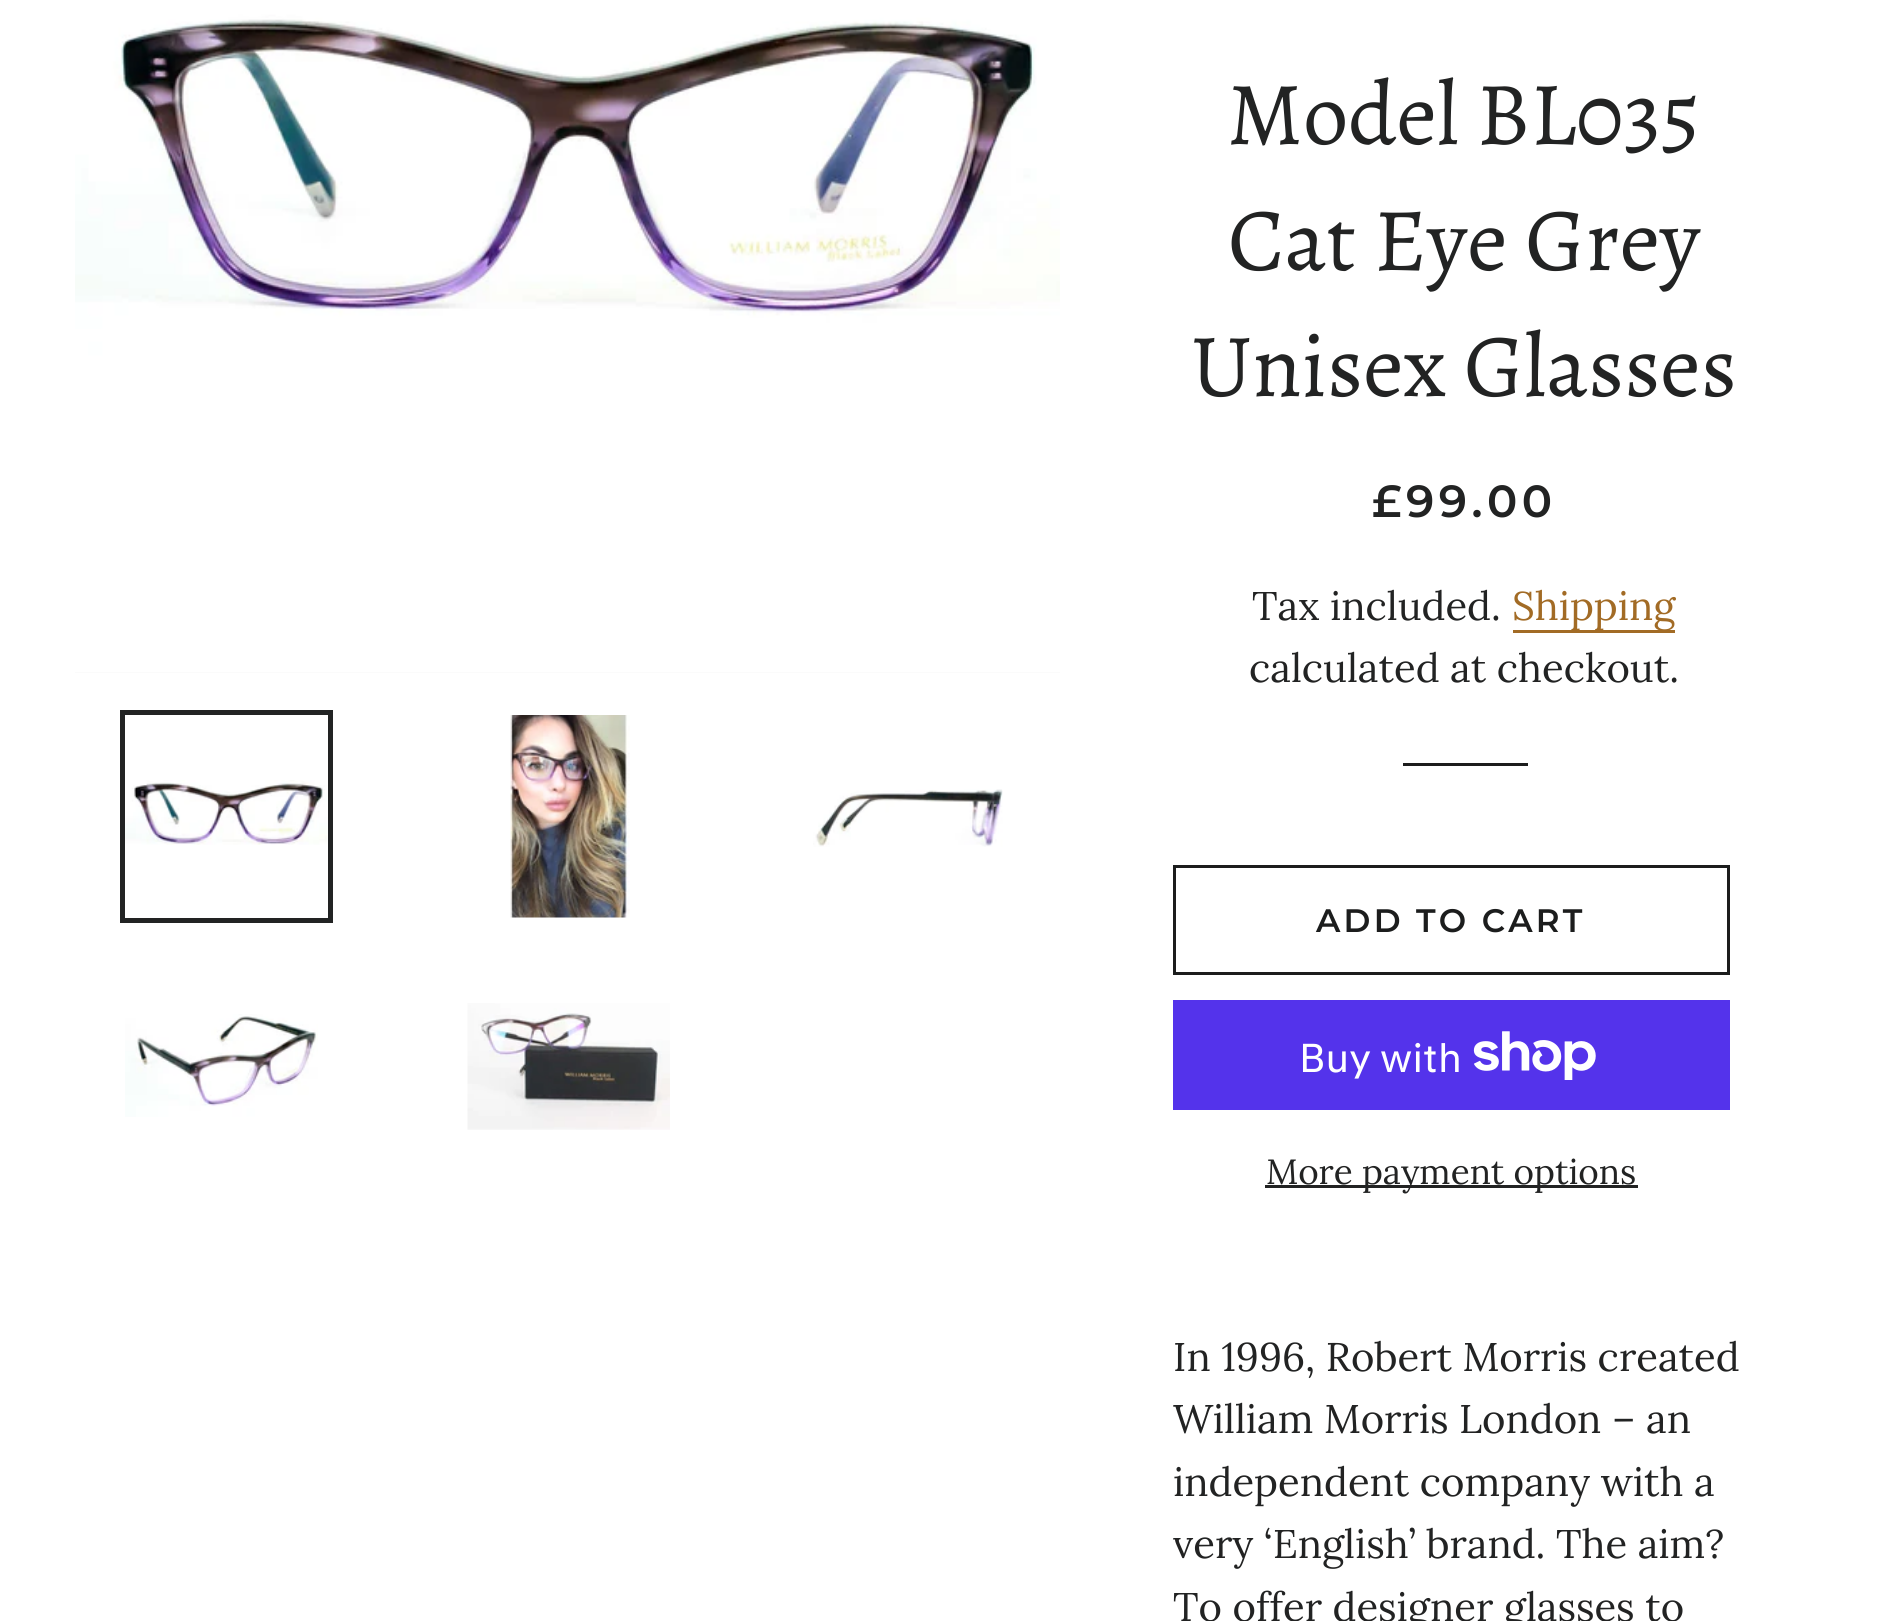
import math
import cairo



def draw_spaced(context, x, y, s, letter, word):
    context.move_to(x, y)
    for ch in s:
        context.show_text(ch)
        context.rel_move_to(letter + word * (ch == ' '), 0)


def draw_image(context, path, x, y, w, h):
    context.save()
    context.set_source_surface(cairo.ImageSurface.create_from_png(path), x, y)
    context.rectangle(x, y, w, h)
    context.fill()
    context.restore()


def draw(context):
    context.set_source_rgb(1, 1, 1)
    context.paint()
    context.set_source_rgb(247 / 255, 247 / 255, 247 / 255)
    context.rectangle(75, 672, 985, 1)
    context.fill()
    draw_image(context, "images/1.png", 75, 0, 985, 673)
    context.rectangle(122.5, 712.5, 208, 208)
    context.set_source_rgb(34 / 255, 35 / 255, 35 / 255)
    context.set_line_width(5)
    context.stroke()
    draw_image(context, "images/2.png", 125, 780, 203, 65)
    draw_image(context, "images/3.png", 510, 715, 120, 203)
    draw_image(context, "images/4.png", 813, 789, 190, 58)
    draw_image(context, "images/5.png", 125, 1014, 193, 103)
    draw_image(context, "images/6.png", 467, 1003, 203, 127)
    context.set_source_rgb(162 / 255, 107 / 255, 37 / 255)
    context.rectangle(1513, 630, 162, 3)
    context.fill()
    context.set_source_rgb(28 / 255, 29 / 255, 29 / 255)
    context.rectangle(1403, 763, 125, 3)
    context.fill()
    context.rectangle(1174.5, 866.5, 554, 107)
    context.set_line_width(3)
    context.stroke()
    context.set_source_rgb(84 / 255, 51 / 255, 235 / 255)
    context.rectangle(1173, 1000, 557, 110)
    context.fill()
    draw_image(context, "images/7.png", 1473, 1031, 123, 49)
    context.set_source_rgb(34 / 255, 35 / 255, 35 / 255)
    context.rectangle(1265, 1185, 373, 3)
    context.fill()
    context.select_font_face("Alegreya")
    context.set_font_size(90)
    context.move_to(1227, 144)
    context.show_text("Model BL035")
    context.move_to(1228, 270)
    context.show_text("Cat Eye Grey")
    context.move_to(1191, 396)
    context.show_text("Unisex Glasses")
    context.select_font_face("Montserrat SemiBold")
    context.set_font_size(45)
    draw_spaced(context, 1372, 517, "£99.00", 4.5, 0)
    context.select_font_face("Lora")
    context.set_font_size(40)
    context.move_to(1252, 620)
    context.show_text("Tax included.")
    context.set_source_rgb(162 / 255, 107 / 255, 37 / 255)
    context.move_to(1512, 620)
    context.show_text("Shipping")
    context.set_source_rgb(34 / 255, 35 / 255, 35 / 255)
    context.move_to(1249, 682)
    context.show_text("calculated at checkout.")
    context.select_font_face("Montserrat SemiBold")
    context.set_font_size(32.5)
    context.set_source_rgb(28 / 255, 29 / 255, 29 / 255)
    draw_spaced(context, 1316, 932, "ADD TO CART", 3.25, 0)
    context.select_font_face("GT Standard")
    context.set_font_size(40)
    context.set_source_rgb(1, 1, 1)
    context.move_to(1299, 1072)
    context.show_text("Buy with")
    context.select_font_face("Lora")
    context.set_font_size(35)
    context.set_source_rgb(34 / 255, 35 / 255, 35 / 255)
    context.move_to(1266, 1184)
    context.show_text("More payment options")
    context.set_font_size(40)
    context.move_to(1173, 1371)
    context.show_text("In 1996, Robert Morris created")
    context.move_to(1173, 1433)
    context.show_text("William Morris London – an")
    context.move_to(1173, 1496)
    context.show_text("independent company with a")
    context.move_to(1173, 1558)
    context.show_text("very ‘English’ brand. The aim?")
    context.move_to(1173, 1621)
    context.show_text("To offer designer glasses to")


surface = cairo.ImageSurface(cairo.Format.RGB24, 1892, 1621)
context = cairo.Context(surface)
options = cairo.FontOptions()
options.set_hint_metrics(cairo.HintMetrics.OFF)
options.set_hint_style(cairo.HintStyle.NONE)
context.set_font_options(options)
context.set_miter_limit(4)
draw(context)
surface.write_to_png("out.png")
